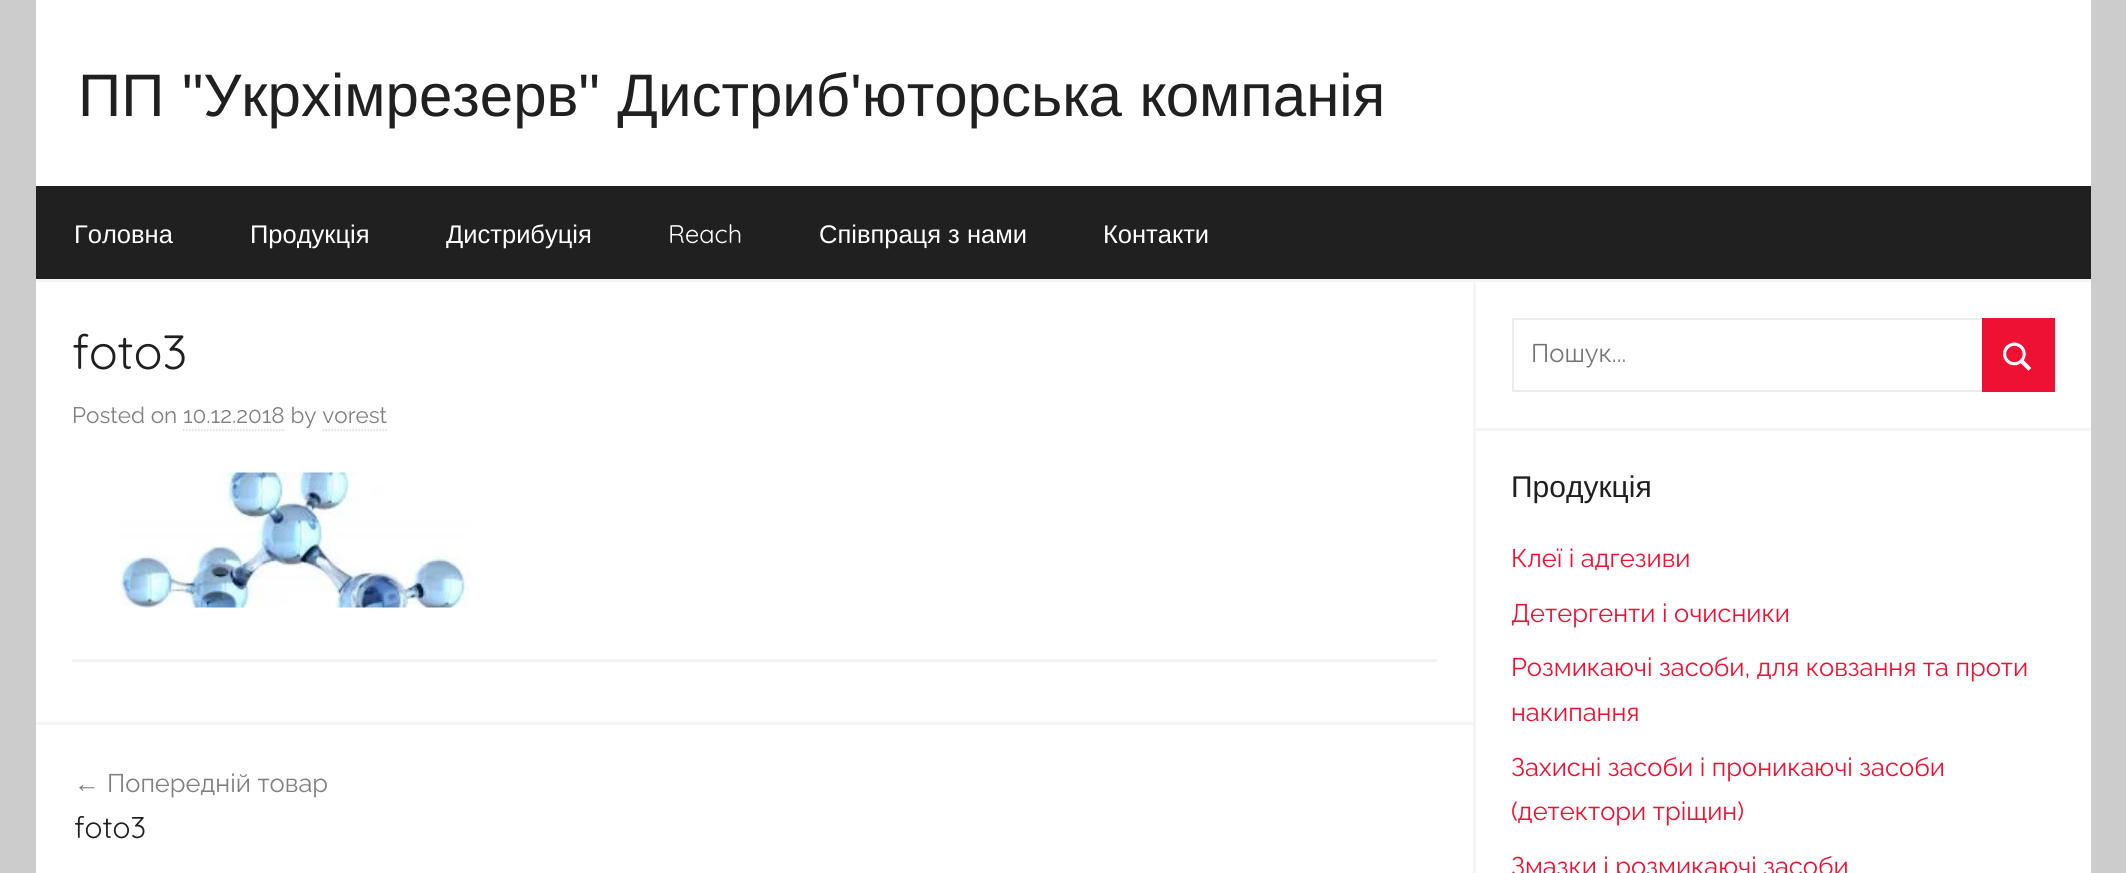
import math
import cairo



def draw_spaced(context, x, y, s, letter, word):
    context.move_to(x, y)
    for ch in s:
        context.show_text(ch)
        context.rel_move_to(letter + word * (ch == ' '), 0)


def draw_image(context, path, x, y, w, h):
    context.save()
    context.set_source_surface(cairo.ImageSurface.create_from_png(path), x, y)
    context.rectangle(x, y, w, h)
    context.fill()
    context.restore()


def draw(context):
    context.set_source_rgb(204 / 255, 204 / 255, 204 / 255)
    context.paint()
    context.set_source_rgb(1, 1, 1)
    context.rectangle(36, 0, 2055, 186)
    context.fill()
    context.set_source_rgb(32 / 255, 32 / 255, 32 / 255)
    context.rectangle(36, 186, 2055, 93)
    context.fill()
    context.set_source_rgb(245 / 255, 245 / 255, 245 / 255)
    context.rectangle(36, 279, 2055, 594)
    context.fill()
    context.set_source_rgb(1, 1, 1)
    context.rectangle(36, 282, 1437, 440)
    context.fill()
    context.new_path()
    context.move_to(183, 430)
    context.line_to(285, 430)
    context.set_source_rgb(217 / 255, 217 / 255, 217 / 255)
    context.set_line_width(1.5)
    context.set_dash([1.5, 1.5])
    context.stroke()
    context.new_path()
    context.move_to(322.5, 430)
    context.line_to(387, 430)
    context.stroke()
    draw_image(context, "images/1.png", 119, 472, 350, 136)
    context.set_source_rgb(242 / 255, 242 / 255, 242 / 255)
    context.rectangle(72, 659, 1365, 3)
    context.fill()
    context.set_source_rgb(1, 1, 1)
    context.rectangle(36, 725, 1437, 148)
    context.fill()
    context.rectangle(1476, 282, 615, 591)
    context.fill()
    context.set_source_rgb(245 / 255, 245 / 255, 245 / 255)
    context.rectangle(1476, 428, 615, 3)
    context.fill()
    context.rectangle(1513, 319, 541, 72)
    context.set_source_rgb(236 / 255, 236 / 255, 236 / 255)
    context.set_line_width(2)
    context.set_dash([])
    context.stroke()
    context.set_source_rgb(238 / 255, 17 / 255, 51 / 255)
    context.rectangle(1982, 318, 73, 74)
    context.fill()
    draw_image(context, "images/2.png", 2003, 342, 29, 29)
    context.select_font_face("Liberation Sans")
    context.set_font_size(60)
    context.set_source_rgb(32 / 255, 32 / 255, 32 / 255)
    draw_spaced(context, 78, 116, "ПП \"Укрхімрезерв\" Дистриб'юторська компанія", 0, 1)
    context.set_font_size(25.5)
    context.set_source_rgb(1, 1, 1)
    context.move_to(74, 243)
    context.show_text("Головна")
    context.move_to(250, 243)
    context.show_text("Продукція")
    context.move_to(446, 243)
    context.show_text("Дистрибуція")
    context.select_font_face("Quicksand Light")
    context.move_to(668, 243)
    context.show_text("Reach")
    context.select_font_face("Liberation Sans")
    context.move_to(819, 243)
    context.show_text("Співпраця з нами")
    context.move_to(1103, 243)
    context.show_text("Контакти")
    context.select_font_face("Quicksand Light")
    context.set_font_size(48)
    context.set_source_rgb(32 / 255, 32 / 255, 32 / 255)
    context.move_to(72, 369)
    context.show_text("foto3")
    context.select_font_face("Raleway Thin")
    context.set_font_size(22.5)
    context.set_source_rgb(128 / 255, 128 / 255, 128 / 255)
    context.move_to(72, 423)
    context.show_text("Posted on 10.12.2018 by vorest")
    context.select_font_face("Liberation Sans")
    context.set_font_size(25.5)
    context.move_to(74, 792)
    context.show_text("←")
    context.select_font_face("Raleway Thin")
    context.move_to(107, 792)
    context.show_text("Попередній товар")
    context.select_font_face("Quicksand Light")
    context.set_font_size(30)
    context.set_source_rgb(32 / 255, 32 / 255, 32 / 255)
    context.move_to(74, 838)
    context.show_text("foto3")
    context.select_font_face("Raleway Thin")
    context.set_font_size(25.5)
    context.set_source_rgb(117 / 255, 117 / 255, 117 / 255)
    context.move_to(1531, 362)
    context.show_text("Пошук...")
    context.select_font_face("Liberation Sans")
    context.set_font_size(30)
    context.set_source_rgb(32 / 255, 32 / 255, 32 / 255)
    context.move_to(1511, 497)
    context.show_text("Продукція")
    context.select_font_face("Raleway Thin")
    context.set_font_size(25.5)
    context.set_source_rgb(238 / 255, 17 / 255, 51 / 255)
    context.move_to(1511, 567)
    context.show_text("Клеї і адгезиви")
    context.move_to(1511, 622)
    context.show_text("Детергенти і очисники")
    context.move_to(1511, 676)
    context.show_text("Розмикаючі засоби, для ковзання та проти")
    context.move_to(1511, 721)
    context.show_text("накипання")
    context.move_to(1511, 776)
    context.show_text("Захисні засоби і проникаючі засоби")
    context.move_to(1511, 820)
    context.show_text("(детектори тріщин)")
    context.move_to(1511, 875)
    context.show_text("Змазки і розмикаючі засоби")


surface = cairo.ImageSurface(cairo.Format.RGB24, 2126, 873)
context = cairo.Context(surface)
options = cairo.FontOptions()
options.set_hint_metrics(cairo.HintMetrics.OFF)
options.set_hint_style(cairo.HintStyle.NONE)
context.set_font_options(options)
context.set_miter_limit(4)
draw(context)
surface.write_to_png("out.png")
